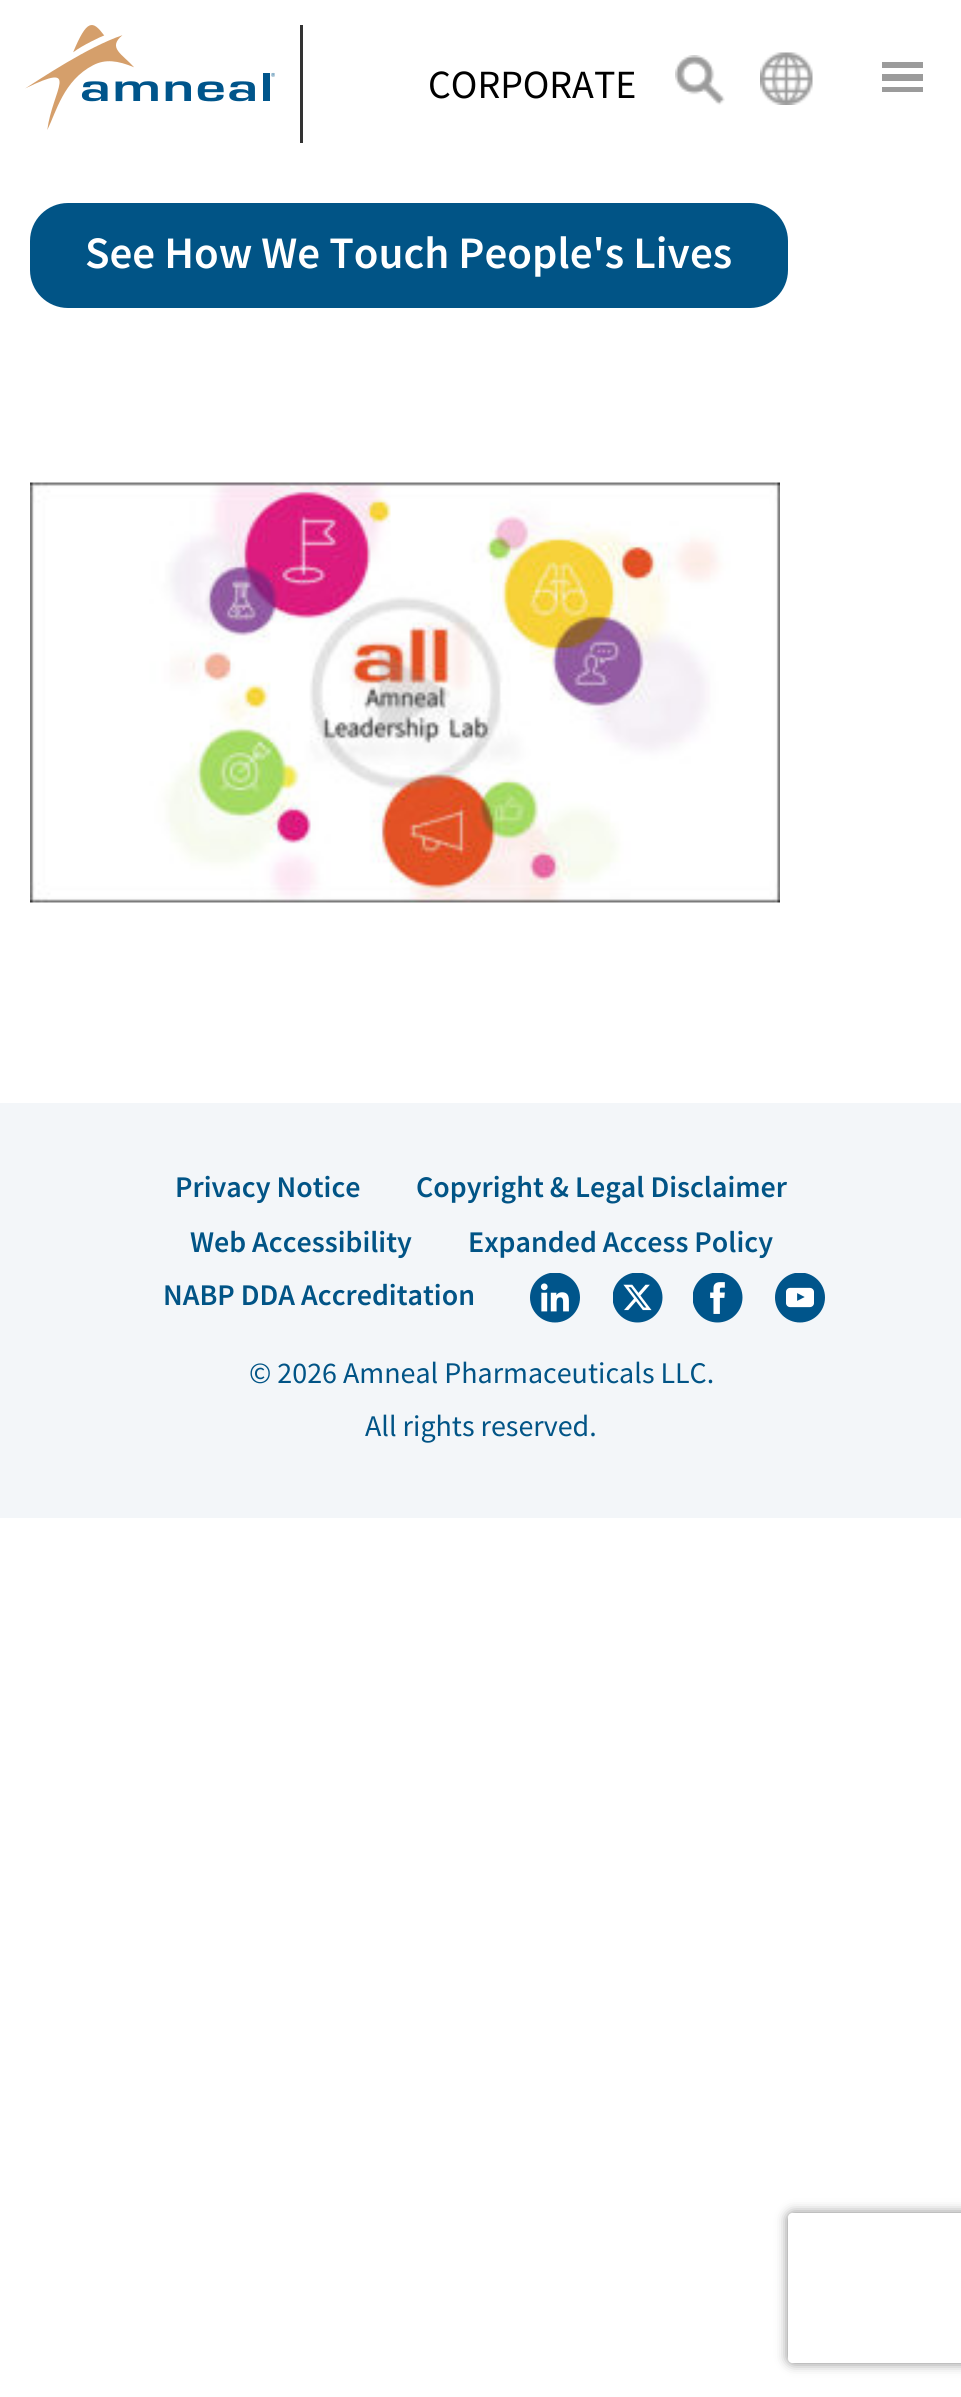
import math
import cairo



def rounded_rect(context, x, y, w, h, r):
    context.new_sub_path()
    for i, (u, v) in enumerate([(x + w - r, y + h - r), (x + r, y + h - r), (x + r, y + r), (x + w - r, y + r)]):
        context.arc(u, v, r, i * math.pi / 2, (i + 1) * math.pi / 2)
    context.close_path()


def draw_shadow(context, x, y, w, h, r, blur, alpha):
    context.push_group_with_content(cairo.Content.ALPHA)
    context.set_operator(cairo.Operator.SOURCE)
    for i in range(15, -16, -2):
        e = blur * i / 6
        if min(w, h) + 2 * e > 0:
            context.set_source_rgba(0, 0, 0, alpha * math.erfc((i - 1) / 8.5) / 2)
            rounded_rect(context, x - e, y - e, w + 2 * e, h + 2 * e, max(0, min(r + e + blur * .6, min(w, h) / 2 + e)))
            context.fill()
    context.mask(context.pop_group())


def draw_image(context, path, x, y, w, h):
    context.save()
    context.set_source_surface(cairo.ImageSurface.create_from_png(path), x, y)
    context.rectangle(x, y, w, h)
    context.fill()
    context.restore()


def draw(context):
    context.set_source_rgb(1, 1, 1)
    context.paint()
    draw_image(context, "images/1.png", 25, 25, 250, 105)
    context.set_source_rgb(51 / 255, 51 / 255, 51 / 255)
    context.rectangle(300, 25, 3, 118)
    context.fill()
    draw_image(context, "images/2.png", 675, 55, 50, 50)
    draw_image(context, "images/3.png", 760, 52, 53, 53)
    context.set_source_rgb(155 / 255, 155 / 255, 155 / 255)
    context.new_path()
    context.move_to(882, 92)
    context.line_to(923, 92)
    context.line_to(923, 87)
    context.line_to(882, 87)
    context.close_path()
    context.move_to(882, 62)
    context.line_to(882, 68)
    context.line_to(923, 68)
    context.line_to(923, 62)
    context.close_path()
    context.move_to(882, 81)
    context.line_to(923, 81)
    context.line_to(923, 74)
    context.line_to(882, 74)
    context.close_path()
    context.fill()
    context.set_source_rgb(1 / 255, 84 / 255, 134 / 255)
    rounded_rect(context, 32.5, 205.5, 753, 100, 35.5)
    context.fill_preserve()
    context.set_line_width(5)
    context.stroke()
    draw_image(context, "images/4.png", 30, 482, 750, 421)
    context.set_source_rgb(243 / 255, 246 / 255, 249 / 255)
    context.rectangle(0, 1103, 961, 415)
    context.fill()
    draw_image(context, "images/5.png", 530, 1273, 50, 50)
    draw_image(context, "images/6.png", 613, 1273, 50, 50)
    draw_image(context, "images/7.png", 693, 1273, 50, 50)
    draw_image(context, "images/8.png", 775, 1273, 50, 50)
    context.save()
    context.set_fill_rule(cairo.FillRule.EVEN_ODD)
    context.new_path()
    context.move_to(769, 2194)
    context.line_to(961, 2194)
    context.line_to(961, 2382)
    context.line_to(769, 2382)
    context.close_path()
    context.move_to(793, 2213)
    context.line_to(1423, 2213)
    context.curve_to(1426, 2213, 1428, 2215, 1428, 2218)
    context.line_to(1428, 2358)
    context.curve_to(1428, 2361, 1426, 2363, 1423, 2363)
    context.line_to(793, 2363)
    context.curve_to(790, 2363, 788, 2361, 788, 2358)
    context.line_to(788, 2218)
    context.curve_to(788, 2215, 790, 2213, 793, 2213)
    context.close_path()
    context.clip()
    context.set_source_rgb(128 / 255, 128 / 255, 128 / 255)
    draw_shadow(context, 788, 2213, 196, 150, 5, 6, 1)
    context.restore()
    context.select_font_face("Source Sans Pro")
    context.set_font_size(40)
    context.set_source_rgb(0, 0, 0)
    context.move_to(428, 98)
    context.show_text("CORPORATE")
    context.select_font_face("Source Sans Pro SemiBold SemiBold")
    context.set_font_size(45)
    context.set_source_rgb(1, 1, 1)
    context.move_to(85, 268)
    context.show_text("See How We Touch People's Lives")
    context.set_font_size(30)
    context.set_source_rgb(1 / 255, 84 / 255, 134 / 255)
    context.move_to(175, 1197)
    context.show_text("Privacy Notice")
    context.move_to(416, 1197)
    context.show_text("Copyright & Legal Disclaimer")
    context.move_to(190, 1252)
    context.show_text("Web Accessibility")
    context.move_to(468, 1252)
    context.show_text("Expanded Access Policy")
    context.move_to(163, 1305)
    context.show_text("NABP DDA Accreditation")
    context.select_font_face("Source Sans Pro")
    context.move_to(249, 1383)
    context.show_text("© 2026 Amneal Pharmaceuticals LLC.")
    context.move_to(365, 1436)
    context.show_text("All rights reserved.")


surface = cairo.ImageSurface(cairo.Format.RGB24, 961, 2397)
context = cairo.Context(surface)
options = cairo.FontOptions()
options.set_hint_metrics(cairo.HintMetrics.OFF)
options.set_hint_style(cairo.HintStyle.NONE)
context.set_font_options(options)
context.set_miter_limit(4)
draw(context)
surface.write_to_png("out.png")
